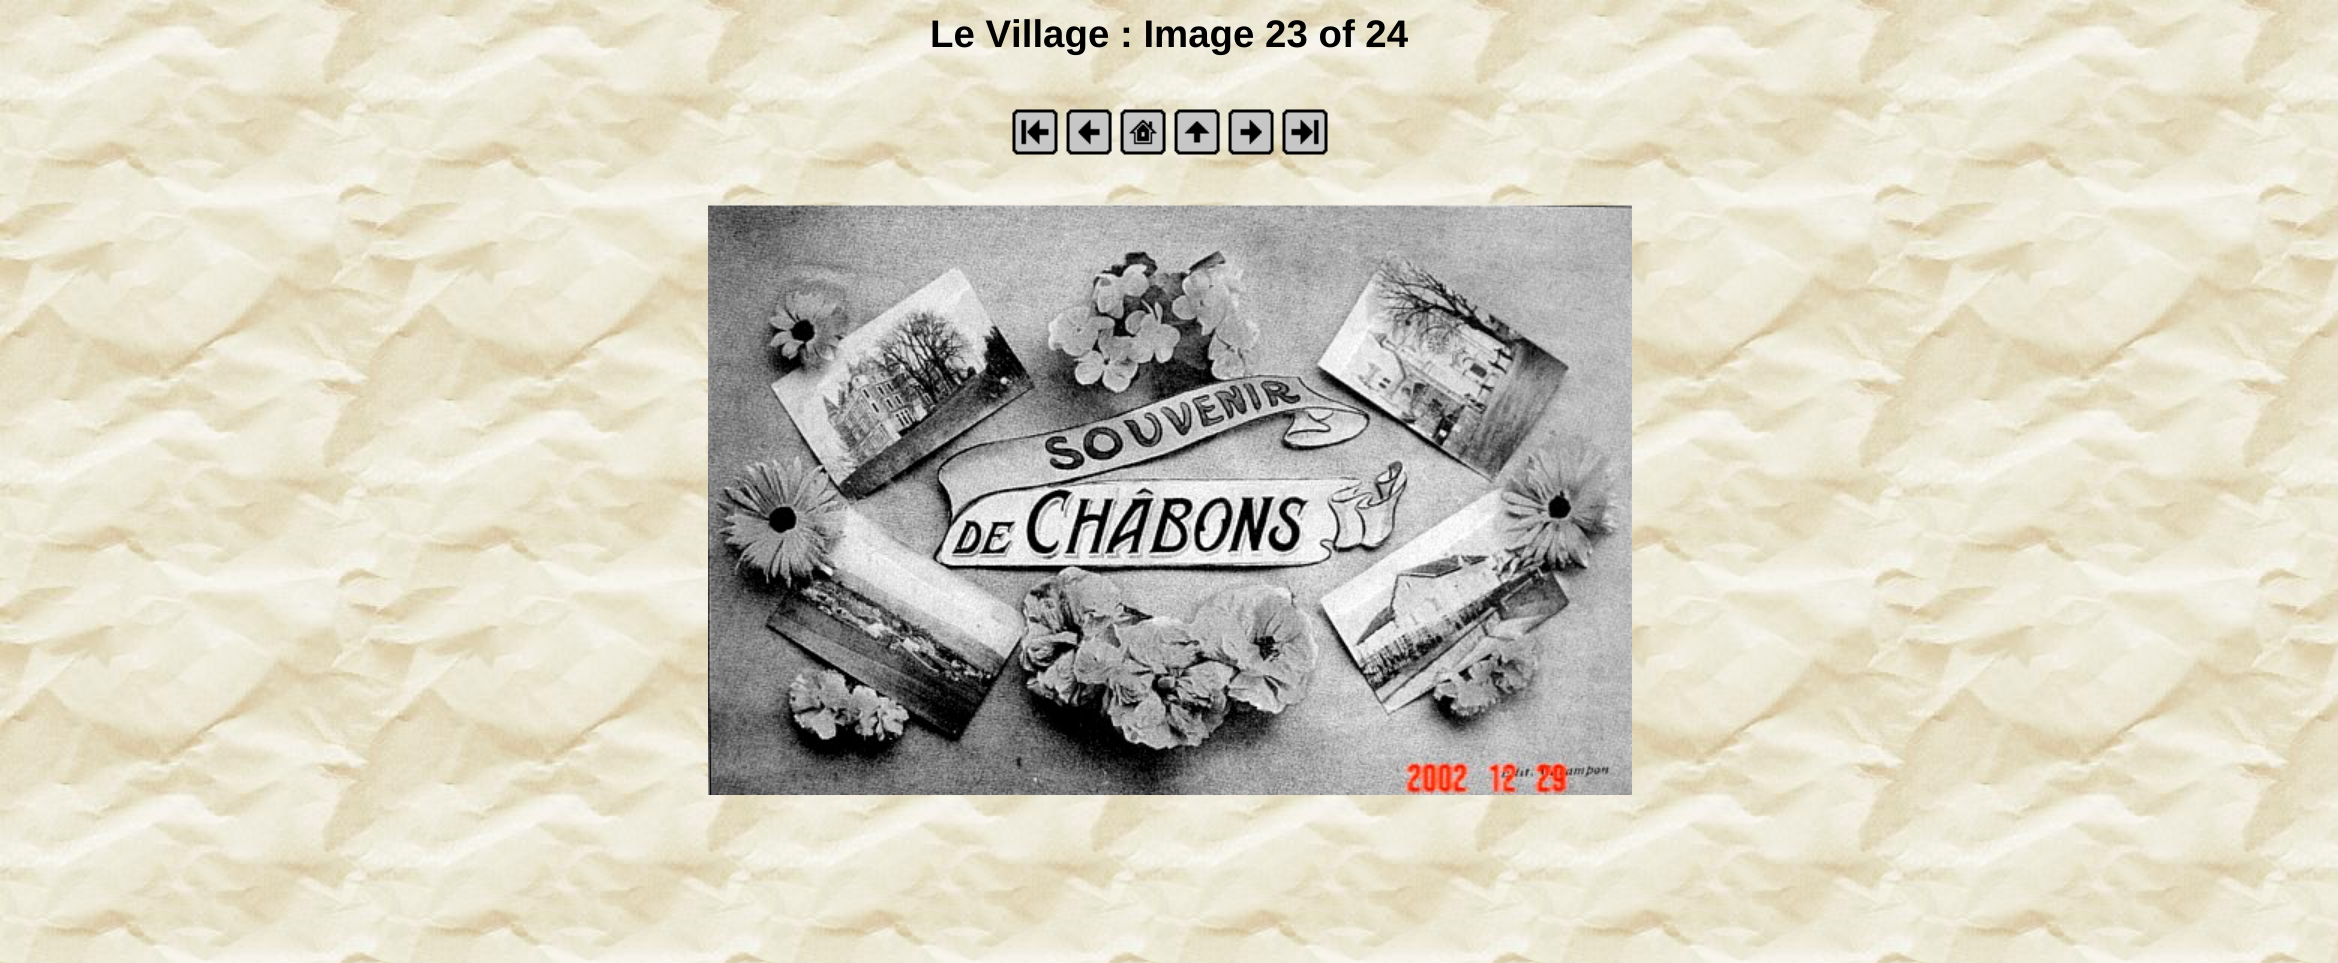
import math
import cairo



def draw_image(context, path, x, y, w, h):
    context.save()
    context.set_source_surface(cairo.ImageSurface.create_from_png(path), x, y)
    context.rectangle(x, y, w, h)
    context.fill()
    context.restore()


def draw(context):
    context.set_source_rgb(1, 1, 1)
    context.paint()
    draw_image(context, "images/1.png", 0, 0, 2338, 963)
    draw_image(context, "images/2.png", 1012, 109, 46, 46)
    draw_image(context, "images/3.png", 1066, 109, 46, 46)
    draw_image(context, "images/4.png", 1120, 109, 46, 46)
    draw_image(context, "images/5.png", 1174, 109, 46, 46)
    draw_image(context, "images/6.png", 1228, 109, 46, 46)
    draw_image(context, "images/7.png", 1282, 109, 46, 46)
    draw_image(context, "images/8.png", 708, 205, 924, 590)
    context.select_font_face("Liberation Sans", cairo.FontSlant.NORMAL, cairo.FontWeight.BOLD)
    context.set_font_size(38.4)
    context.set_source_rgb(0, 0, 0)
    context.move_to(930, 47)
    context.show_text("Le Village : Image 23 of 24")


surface = cairo.ImageSurface(cairo.Format.RGB24, 2338, 963)
context = cairo.Context(surface)
options = cairo.FontOptions()
options.set_hint_metrics(cairo.HintMetrics.OFF)
options.set_hint_style(cairo.HintStyle.NONE)
context.set_font_options(options)
context.set_miter_limit(4)
draw(context)
surface.write_to_png("out.png")
